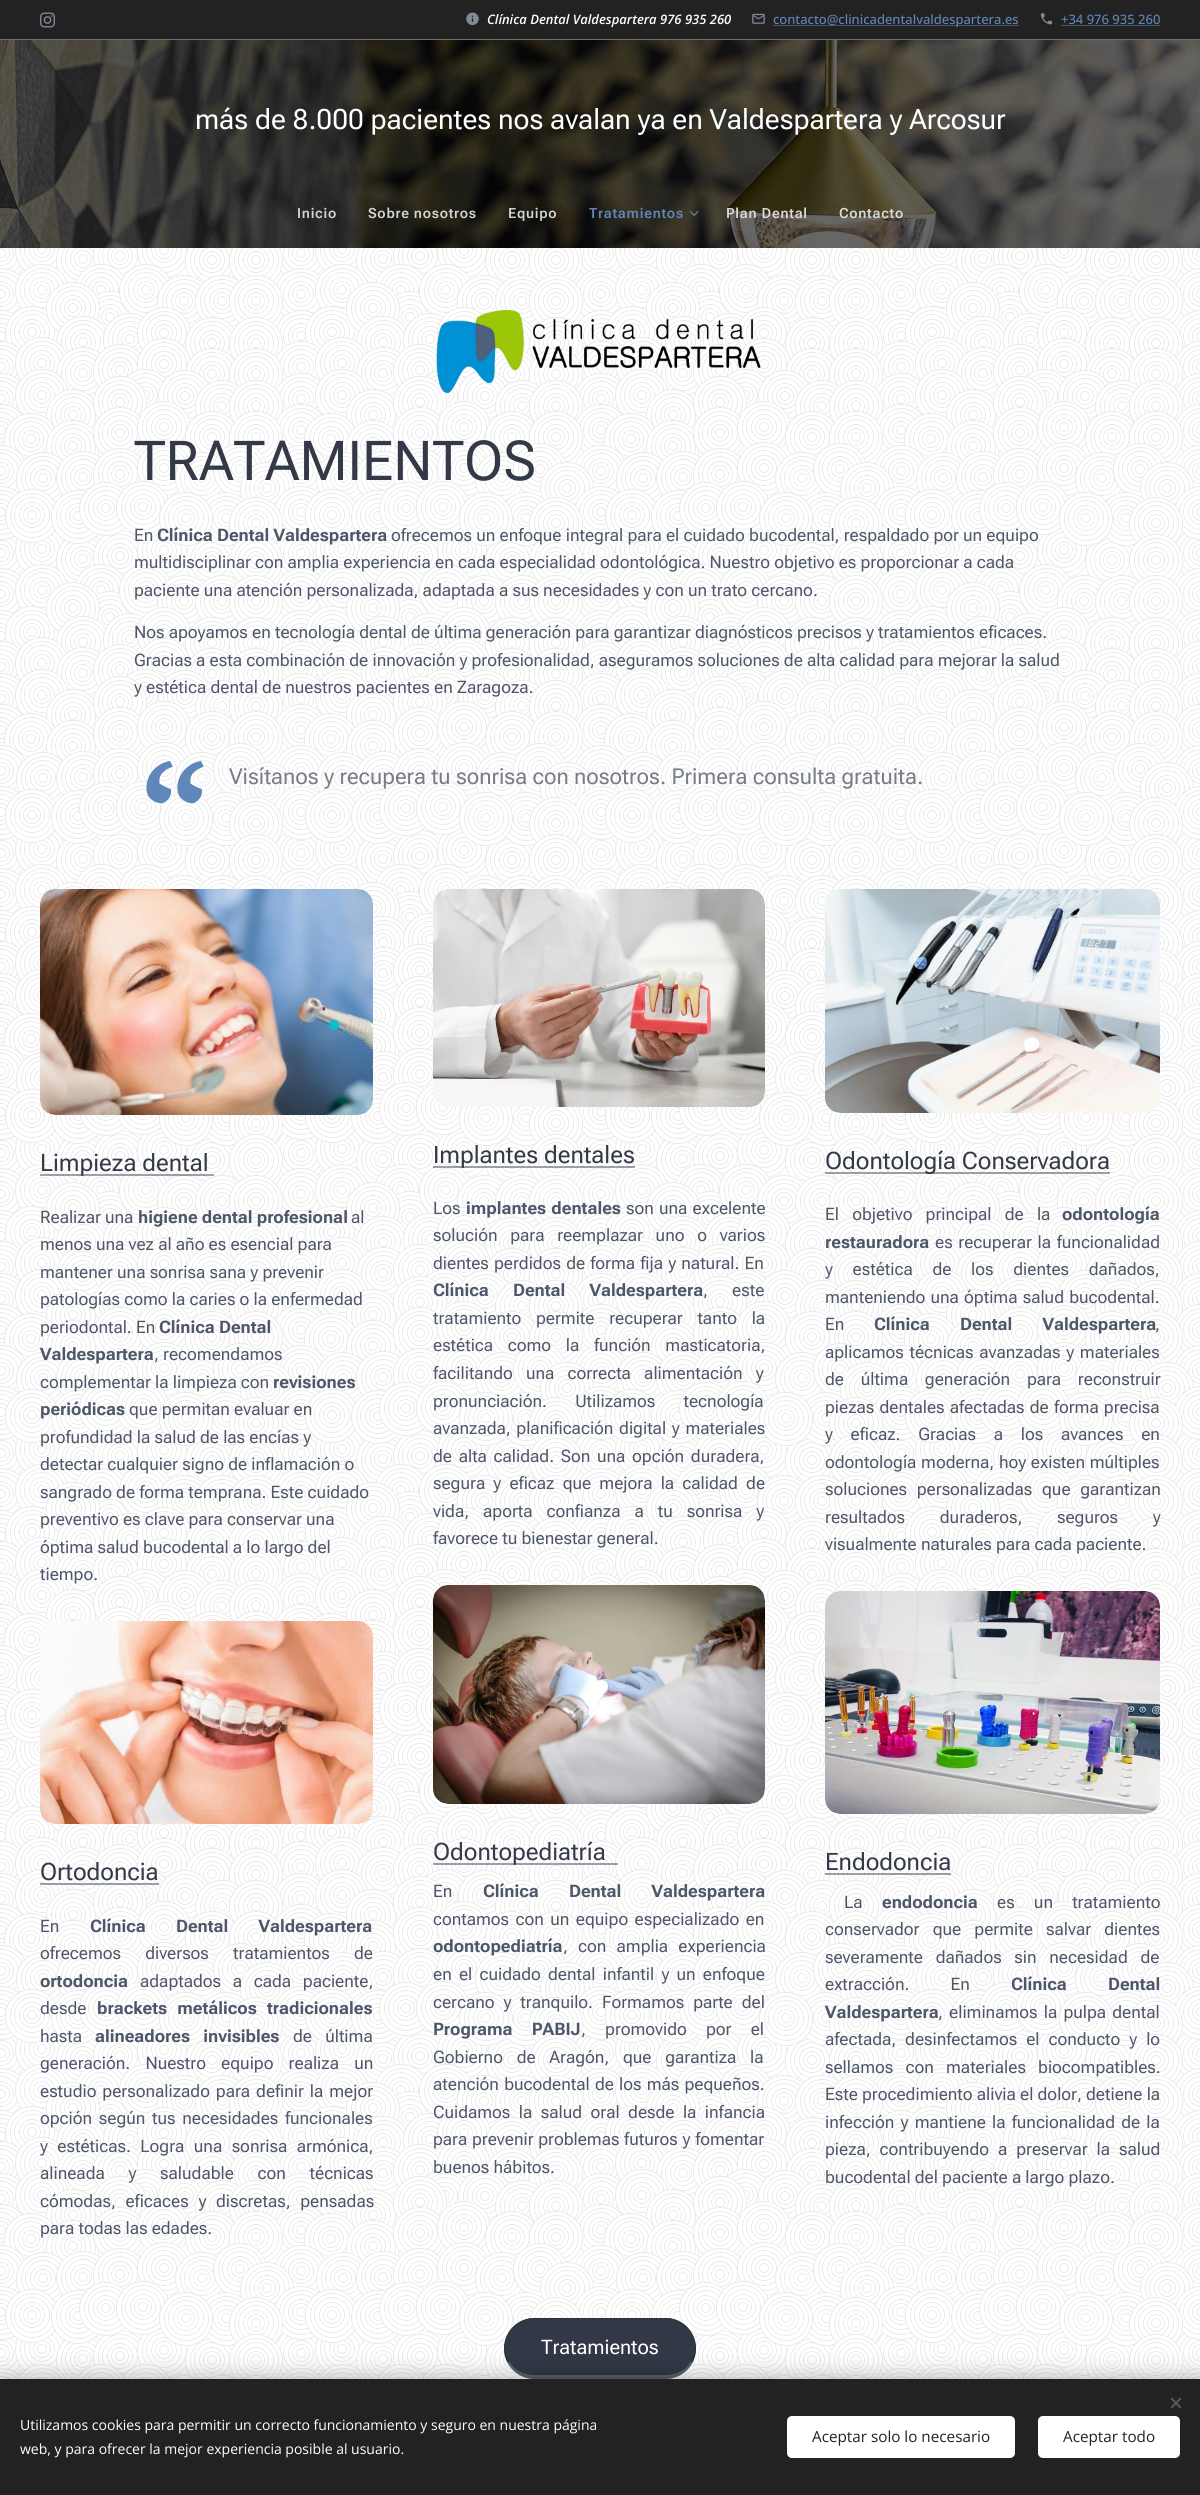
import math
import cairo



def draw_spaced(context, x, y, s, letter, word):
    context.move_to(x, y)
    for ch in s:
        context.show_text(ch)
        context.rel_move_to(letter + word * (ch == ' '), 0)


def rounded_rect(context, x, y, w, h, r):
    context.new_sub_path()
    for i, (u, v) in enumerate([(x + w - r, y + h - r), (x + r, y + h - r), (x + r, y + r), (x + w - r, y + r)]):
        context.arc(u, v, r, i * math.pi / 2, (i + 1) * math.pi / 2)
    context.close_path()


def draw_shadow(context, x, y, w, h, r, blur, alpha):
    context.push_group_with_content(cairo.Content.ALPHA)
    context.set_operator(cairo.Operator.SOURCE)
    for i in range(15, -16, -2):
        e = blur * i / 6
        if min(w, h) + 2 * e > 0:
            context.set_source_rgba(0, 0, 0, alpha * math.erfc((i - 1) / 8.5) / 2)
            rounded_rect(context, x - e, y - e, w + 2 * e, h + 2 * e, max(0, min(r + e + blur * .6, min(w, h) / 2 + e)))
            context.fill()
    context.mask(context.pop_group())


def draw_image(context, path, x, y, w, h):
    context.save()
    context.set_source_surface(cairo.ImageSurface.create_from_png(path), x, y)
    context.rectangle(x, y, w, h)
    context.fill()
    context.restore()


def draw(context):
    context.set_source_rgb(1, 1, 1)
    context.paint()
    context.set_source_rgb(34 / 255, 34 / 255, 34 / 255)
    context.rectangle(0, 0, 1200, 39)
    context.fill()
    draw_image(context, "images/1.png", 40, 12, 15, 16)
    draw_image(context, "images/2.png", 466, 12, 13, 14)
    draw_image(context, "images/3.png", 752, 13, 13, 11)
    context.set_source_rgb(65 / 255, 85 / 255, 110 / 255)
    context.rectangle(773, 25, 246, 1)
    context.fill()
    draw_image(context, "images/4.png", 1040, 13, 13, 12)
    context.rectangle(1061, 25, 99, 1)
    context.fill()
    context.set_source_rgb(110 / 255, 110 / 255, 110 / 255)
    context.rectangle(0, 39, 1200, 1)
    context.fill()
    draw_image(context, "images/5.png", 0, 40, 1200, 208)
    draw_image(context, "images/6.png", 689, 210, 10, 6)
    draw_image(context, "images/7.png", 0, 248, 1200, 2131)
    draw_image(context, "images/8.png", 436, 310, 325, 84)
    draw_image(context, "images/9.png", 40, 889, 333, 226)
    context.set_source_rgba(40 / 255, 47 / 255, 61 / 255, 0.45)
    context.rectangle(40, 1174, 174, 2)
    context.fill()
    draw_image(context, "images/10.png", 40, 1621, 333, 203)
    context.rectangle(40, 1883, 119, 2)
    context.fill()
    draw_image(context, "images/11.png", 433, 889, 332, 218)
    context.rectangle(433, 1166, 202, 2)
    context.fill()
    draw_image(context, "images/12.png", 433, 1585, 332, 219)
    context.rectangle(433, 1863, 185, 2)
    context.fill()
    draw_image(context, "images/13.png", 825, 889, 335, 224)
    context.rectangle(825, 1172, 285, 2)
    context.fill()
    draw_image(context, "images/14.png", 825, 1591, 335, 223)
    context.rectangle(825, 1873, 126, 2)
    context.fill()
    context.set_source_rgba(40 / 255, 47 / 255, 61 / 255, 0.95)
    rounded_rect(context, 504, 2318, 192, 61, 30.5)
    context.fill()
    context.new_path()
    context.move_to(534, 2318)
    context.curve_to(526, 2318, 518, 2322, 513, 2327)
    context.line_to(514, 2328)
    context.curve_to(519, 2322, 526, 2319, 534, 2319)
    context.line_to(666, 2319)
    context.curve_to(674, 2319, 681, 2322, 686, 2328)
    context.line_to(687, 2327)
    context.curve_to(682, 2322, 674, 2318, 666, 2318)
    context.close_path()
    context.fill()
    context.new_path()
    context.move_to(687, 2327)
    context.curve_to(696.5, 2336.5, 698.5, 2351.5, 692, 2363)
    context.line_to(691.5, 2361)
    context.curve_to(698, 2350, 695, 2336, 686.5, 2327.5)
    context.close_path()
    context.fill()
    context.set_source_rgba(1, 1, 1, 0.2)
    context.new_path()
    context.move_to(534, 2379)
    context.line_to(666, 2379)
    context.curve_to(677, 2379, 687, 2373, 692, 2363)
    context.line_to(691, 2361)
    context.curve_to(687, 2369, 677, 2375, 666, 2375)
    context.line_to(534, 2375)
    context.curve_to(523, 2375, 513, 2369, 509, 2361)
    context.line_to(508, 2363)
    context.curve_to(513, 2373, 523, 2379, 534, 2379)
    context.close_path()
    context.fill()
    context.set_source_rgba(40 / 255, 47 / 255, 61 / 255, 0.95)
    context.new_path()
    context.move_to(508, 2363)
    context.curve_to(501.5, 2351.5, 503.5, 2336.5, 513, 2327)
    context.line_to(513.5, 2327.5)
    context.curve_to(505, 2336, 502, 2350, 508.5, 2361)
    context.close_path()
    context.fill()
    context.set_source_rgb(0, 0, 0)
    draw_shadow(context, 0, 2379, 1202, 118, 0, 12.5, 0.33)
    context.set_source_rgb(34 / 255, 34 / 255, 34 / 255)
    context.rectangle(0, 2379, 1200, 116)
    context.fill()
    context.set_source_rgb(85 / 255, 85 / 255, 85 / 255)
    context.new_path()
    context.move_to(1170.5, 2407)
    context.line_to(1180, 2397.5)
    context.line_to(1181.5, 2399)
    context.line_to(1172, 2408.5)
    context.close_path()
    context.fill()
    context.new_path()
    context.move_to(1172, 2397.5)
    context.line_to(1181.5, 2407)
    context.line_to(1180, 2408.5)
    context.line_to(1170.5, 2399)
    context.close_path()
    context.fill()
    context.set_source_rgb(1, 1, 1)
    rounded_rect(context, 787, 2416, 228, 42, 5)
    context.fill()
    rounded_rect(context, 1038, 2416, 142, 42, 5)
    context.fill()
    context.select_font_face("Open Sans SemiBold", cairo.FontSlant.ITALIC)
    context.set_font_size(13)
    context.move_to(487, 24)
    context.show_text("Clínica Dental Valdespartera 976 935 260")
    context.select_font_face("Open Sans Medium")
    context.set_source_rgb(96 / 255, 135 / 255, 185 / 255)
    context.move_to(773, 24)
    context.show_text("contacto@clinicadentalvaldespartera.es")
    context.move_to(1061, 24)
    context.show_text("+34 976 935 260")
    context.select_font_face("Roboto Flex")
    context.set_font_size(28)
    context.set_source_rgb(1, 1, 1)
    context.move_to(195, 129)
    context.show_text("más de 8.000 pacientes nos avalan ya en Valdespartera y Arcosur")
    context.select_font_face("Roboto Flex SemiBold")
    context.set_font_size(14)
    context.set_source_rgb(212 / 255, 212 / 255, 212 / 255)
    draw_spaced(context, 297, 218, "Inicio", 0.75, 0)
    draw_spaced(context, 368, 218, "Sobre nosotros", 0.75, 0)
    draw_spaced(context, 508, 218, "Equipo", 0.75, 0)
    context.set_source_rgb(96 / 255, 135 / 255, 185 / 255)
    draw_spaced(context, 589, 218, "Tratamientos", 0.75, 0)
    context.set_source_rgb(219 / 255, 218 / 255, 215 / 255)
    draw_spaced(context, 726, 218, "Plan Dental", 0.75, 0)
    draw_spaced(context, 839, 218, "Contacto", 0.75, 0)
    context.select_font_face("Roboto Flex")
    context.set_font_size(55)
    context.set_source_rgb(51 / 255, 57 / 255, 70 / 255)
    context.move_to(134, 480)
    context.show_text("TRATAMIENTOS")
    context.set_font_size(17.2)
    context.set_source_rgb(78 / 255, 87 / 255, 106 / 255)
    context.move_to(134, 541)
    context.show_text("En")
    context.select_font_face("Roboto Flex", cairo.FontSlant.NORMAL, cairo.FontWeight.BOLD)
    context.move_to(157, 541)
    context.show_text("Clínica Dental Valdespartera")
    context.select_font_face("Roboto Flex")
    context.move_to(391, 541)
    context.show_text("ofrecemos un enfoque integral para el cuidado bucodental, respaldado por un equipo")
    context.move_to(134, 568)
    context.show_text("multidisciplinar con amplia experiencia en cada especialidad odontológica. Nuestro objetivo es proporcionar a cada")
    context.move_to(134, 596)
    context.show_text("paciente una atención personalizada, adaptada a sus necesidades y con un trato cercano.")
    context.move_to(134, 638)
    context.show_text("Nos apoyamos en tecnología dental de última generación para garantizar diagnósticos precisos y tratamientos eficaces.")
    context.move_to(134, 666)
    context.show_text("Gracias a esta combinación de innovación y profesionalidad, aseguramos soluciones de alta calidad para mejorar la salud")
    context.move_to(134, 693)
    context.show_text("y estética dental de nuestros pacientes en Zaragoza.")
    context.select_font_face("PT Serif")
    context.set_font_size(170)
    context.set_source_rgb(96 / 255, 135 / 255, 185 / 255)
    context.move_to(134, 901)
    context.show_text("“")
    context.select_font_face("Roboto Flex")
    context.set_font_size(22)
    context.set_source_rgb(119 / 255, 124 / 255, 135 / 255)
    context.move_to(229, 784)
    context.show_text("Visítanos y recupera tu sonrisa con nosotros. Primera consulta gratuita.")
    context.set_font_size(24)
    context.set_source_rgb(51 / 255, 57 / 255, 70 / 255)
    context.move_to(40, 1171)
    context.show_text("Limpieza dental")
    context.set_font_size(17.2)
    context.set_source_rgb(78 / 255, 87 / 255, 106 / 255)
    context.move_to(40, 1223)
    context.show_text("Realizar una")
    context.select_font_face("Roboto Flex", cairo.FontSlant.NORMAL, cairo.FontWeight.BOLD)
    context.move_to(138, 1223)
    context.show_text("higiene dental profesional")
    context.select_font_face("Roboto Flex")
    context.move_to(351, 1223)
    context.show_text("al")
    context.move_to(40, 1250)
    context.show_text("menos una vez al año es esencial para")
    context.move_to(40, 1278)
    context.show_text("mantener una sonrisa sana y prevenir")
    context.move_to(40, 1305)
    context.show_text("patologías como la caries o la enfermedad")
    context.move_to(40, 1333)
    context.show_text("periodontal. En")
    context.select_font_face("Roboto Flex", cairo.FontSlant.NORMAL, cairo.FontWeight.BOLD)
    context.move_to(159, 1333)
    context.show_text("Clínica Dental")
    context.move_to(40, 1360)
    context.show_text("Valdespartera")
    context.select_font_face("Roboto Flex")
    context.move_to(154, 1360)
    context.show_text(", recomendamos")
    context.move_to(40, 1388)
    context.show_text("complementar la limpieza con")
    context.select_font_face("Roboto Flex", cairo.FontSlant.NORMAL, cairo.FontWeight.BOLD)
    context.move_to(273, 1388)
    context.show_text("revisiones")
    context.move_to(40, 1415)
    context.show_text("periódicas")
    context.select_font_face("Roboto Flex")
    context.move_to(129, 1415)
    context.show_text("que permitan evaluar en")
    context.move_to(40, 1443)
    context.show_text("profundidad la salud de las encías y")
    context.move_to(40, 1470)
    context.show_text("detectar cualquier signo de inflamación o")
    context.move_to(40, 1498)
    context.show_text("sangrado de forma temprana. Este cuidado")
    context.move_to(40, 1525)
    context.show_text("preventivo es clave para conservar una")
    context.move_to(40, 1553)
    context.show_text("óptima salud bucodental a lo largo del")
    context.move_to(40, 1580)
    context.show_text("tiempo.")
    context.set_font_size(24)
    context.set_source_rgb(51 / 255, 57 / 255, 70 / 255)
    context.move_to(40, 1880)
    context.show_text("Ortodoncia")
    context.set_font_size(17.2)
    context.set_source_rgb(78 / 255, 87 / 255, 106 / 255)
    context.move_to(40, 1932)
    context.show_text("En")
    context.select_font_face("Roboto Flex", cairo.FontSlant.NORMAL, cairo.FontWeight.BOLD)
    draw_spaced(context, 90, 1932, "Clínica Dental Valdespartera", 0, 26)
    context.select_font_face("Roboto Flex")
    draw_spaced(context, 40, 1959, "ofrecemos diversos tratamientos de", 0, 20)
    context.select_font_face("Roboto Flex", cairo.FontSlant.NORMAL, cairo.FontWeight.BOLD)
    context.move_to(40, 1987)
    context.show_text("ortodoncia")
    context.select_font_face("Roboto Flex")
    draw_spaced(context, 140, 1987, "adaptados a cada paciente,", 0, 7.5)
    context.move_to(40, 2014)
    context.show_text("desde")
    context.select_font_face("Roboto Flex", cairo.FontSlant.NORMAL, cairo.FontWeight.BOLD)
    draw_spaced(context, 97, 2014, "brackets metálicos tradicionales", 0, 6)
    context.select_font_face("Roboto Flex")
    context.move_to(40, 2042)
    context.show_text("hasta")
    context.select_font_face("Roboto Flex", cairo.FontSlant.NORMAL, cairo.FontWeight.BOLD)
    draw_spaced(context, 95, 2042, "alineadores invisibles", 0, 9)
    context.select_font_face("Roboto Flex")
    draw_spaced(context, 293, 2042, "de última", 0, 9)
    draw_spaced(context, 40, 2069, "generación. Nuestro equipo realiza un", 0, 11)
    draw_spaced(context, 40, 2097, "estudio personalizado para definir la mejor", 0, 1.75)
    draw_spaced(context, 40, 2124, "opción según tus necesidades funcionales", 0, 2.5)
    draw_spaced(context, 40, 2152, "y estéticas. Logra una sonrisa armónica,", 0, 5.25)
    draw_spaced(context, 40, 2179, "alineada y saludable con técnicas", 0, 19.5)
    draw_spaced(context, 40, 2207, "cómodas, eficaces y discretas, pensadas", 0, 5.5)
    context.move_to(40, 2234)
    context.show_text("para todas las edades.")
    context.set_font_size(24)
    context.set_source_rgb(51 / 255, 57 / 255, 70 / 255)
    context.move_to(433, 1163)
    context.show_text("Implantes dentales")
    context.set_font_size(17.2)
    context.set_source_rgb(78 / 255, 87 / 255, 106 / 255)
    context.move_to(433, 1214)
    context.show_text("Los")
    context.select_font_face("Roboto Flex", cairo.FontSlant.NORMAL, cairo.FontWeight.BOLD)
    draw_spaced(context, 466, 1214, "implantes dentales", 0, 1)
    context.select_font_face("Roboto Flex")
    draw_spaced(context, 626, 1214, "son una excelente", 0, 1)
    draw_spaced(context, 433, 1241, "solución para reemplazar uno o varios", 0, 8.5)
    draw_spaced(context, 433, 1269, "dientes perdidos de forma fija y natural. En", 0, 1)
    context.select_font_face("Roboto Flex", cairo.FontSlant.NORMAL, cairo.FontWeight.BOLD)
    draw_spaced(context, 433, 1296, "Clínica Dental Valdespartera", 0, 20)
    context.select_font_face("Roboto Flex")
    draw_spaced(context, 703, 1296, ", este", 0, 20)
    draw_spaced(context, 433, 1324, "tratamiento permite recuperar tanto la", 0, 10.5)
    draw_spaced(context, 433, 1351, "estética como la función masticatoria,", 0, 10.5)
    draw_spaced(context, 433, 1379, "facilitando una correcta alimentación y", 0, 9)
    draw_spaced(context, 433, 1407, "pronunciación. Utilizamos tecnología", 0, 24)
    draw_spaced(context, 433, 1434, "avanzada, planificación digital y materiales", 0, 1.5)
    draw_spaced(context, 433, 1462, "de alta calidad. Son una opción duradera,", 0, 2.5)
    draw_spaced(context, 433, 1489, "segura y eficaz que mejora la calidad de", 0, 4)
    draw_spaced(context, 433, 1517, "vida, aporta confianza a tu sonrisa y", 0, 9.75)
    context.move_to(433, 1544)
    context.show_text("favorece tu bienestar general.")
    context.set_font_size(24)
    context.set_source_rgb(51 / 255, 57 / 255, 70 / 255)
    context.move_to(433, 1860)
    context.show_text("Odontopediatría")
    context.set_font_size(17.2)
    context.set_source_rgb(78 / 255, 87 / 255, 106 / 255)
    context.move_to(433, 1897)
    context.show_text("En")
    context.select_font_face("Roboto Flex", cairo.FontSlant.NORMAL, cairo.FontWeight.BOLD)
    draw_spaced(context, 483, 1897, "Clínica Dental Valdespartera", 0, 26)
    context.select_font_face("Roboto Flex")
    draw_spaced(context, 433, 1925, "contamos con un equipo especializado en", 0, 2.25)
    context.select_font_face("Roboto Flex", cairo.FontSlant.NORMAL, cairo.FontWeight.BOLD)
    context.move_to(433, 1952)
    context.show_text("odontopediatría")
    context.select_font_face("Roboto Flex")
    draw_spaced(context, 563, 1952, ", con amplia experiencia", 0, 6)
    draw_spaced(context, 433, 1980, "en el cuidado dental infantil y un enfoque", 0, 3)
    draw_spaced(context, 433, 2008, "cercano y tranquilo. Formamos parte del", 0, 4.75)
    context.select_font_face("Roboto Flex", cairo.FontSlant.NORMAL, cairo.FontWeight.BOLD)
    draw_spaced(context, 433, 2035, "Programa PABIJ", 0, 15)
    context.select_font_face("Roboto Flex")
    draw_spaced(context, 581, 2035, ", promovido por el", 0, 15)
    draw_spaced(context, 433, 2063, "Gobierno de Aragón, que garantiza la", 0, 9.5)
    draw_spaced(context, 433, 2090, "atención bucodental de los más pequeños.", 0, 1)
    draw_spaced(context, 433, 2118, "Cuidamos la salud oral desde la infancia", 0, 4.25)
    draw_spaced(context, 433, 2145, "para prevenir problemas futuros y fomentar", 0, 0.5)
    context.move_to(433, 2173)
    context.show_text("buenos hábitos.")
    context.set_font_size(24)
    context.set_source_rgb(51 / 255, 57 / 255, 70 / 255)
    context.move_to(825, 1169)
    context.show_text("Odontología Conservadora")
    context.set_font_size(17.2)
    context.set_source_rgb(78 / 255, 87 / 255, 106 / 255)
    draw_spaced(context, 825, 1220, "El objetivo principal de la", 0, 9)
    context.select_font_face("Roboto Flex", cairo.FontSlant.NORMAL, cairo.FontWeight.BOLD)
    context.move_to(1062, 1220)
    context.show_text("odontología")
    context.move_to(825, 1248)
    context.show_text("restauradora")
    context.select_font_face("Roboto Flex")
    draw_spaced(context, 935, 1248, "es recuperar la funcionalidad", 0, 1.5)
    draw_spaced(context, 825, 1275, "y estética de los dientes dañados,", 0, 15.5)
    draw_spaced(context, 825, 1303, "manteniendo una óptima salud bucodental.", 0, 1)
    context.move_to(825, 1330)
    context.show_text("En")
    context.select_font_face("Roboto Flex", cairo.FontSlant.NORMAL, cairo.FontWeight.BOLD)
    draw_spaced(context, 874, 1330, "Clínica Dental Valdespartera", 0, 26)
    context.select_font_face("Roboto Flex")
    context.move_to(1155, 1330)
    context.show_text(",")
    draw_spaced(context, 825, 1358, "aplicamos técnicas avanzadas y materiales", 0, 1.5)
    draw_spaced(context, 825, 1385, "de última generación para reconstruir", 0, 12.5)
    draw_spaced(context, 825, 1413, "piezas dentales afectadas de forma precisa", 0, 1)
    draw_spaced(context, 825, 1440, "y eficaz. Gracias a los avances en", 0, 13.5)
    draw_spaced(context, 825, 1468, "odontología moderna, hoy existen múltiples", 0, 0.5)
    draw_spaced(context, 825, 1495, "soluciones personalizadas que garantizan", 0, 5.5)
    draw_spaced(context, 825, 1523, "resultados duraderos, seguros y", 0, 30.5)
    context.move_to(825, 1550)
    context.show_text("visualmente naturales para cada paciente.")
    context.set_font_size(24)
    context.set_source_rgb(51 / 255, 57 / 255, 70 / 255)
    context.move_to(825, 1870)
    context.show_text("Endodoncia")
    context.set_font_size(17.2)
    context.set_source_rgb(78 / 255, 87 / 255, 106 / 255)
    context.move_to(844, 1908)
    context.show_text("La")
    context.select_font_face("Roboto Flex", cairo.FontSlant.NORMAL, cairo.FontWeight.BOLD)
    context.move_to(882, 1908)
    context.show_text("endodoncia")
    context.select_font_face("Roboto Flex")
    draw_spaced(context, 997, 1908, "es un tratamiento", 0, 15)
    draw_spaced(context, 825, 1935, "conservador que permite salvar dientes", 0, 9)
    draw_spaced(context, 825, 1963, "severamente dañados sin necesidad de", 0, 8.5)
    draw_spaced(context, 825, 1990, "extracción. En", 0, 37)
    context.select_font_face("Roboto Flex", cairo.FontSlant.NORMAL, cairo.FontWeight.BOLD)
    draw_spaced(context, 1011, 1990, "Clínica Dental", 0, 37)
    context.move_to(825, 2018)
    context.show_text("Valdespartera")
    context.select_font_face("Roboto Flex")
    draw_spaced(context, 938, 2018, ", eliminamos la pulpa dental", 0, 2)
    draw_spaced(context, 825, 2045, "afectada, desinfectamos el conducto y lo", 0, 4.75)
    draw_spaced(context, 825, 2073, "sellamos con materiales biocompatibles.", 0, 8)
    context.move_to(825, 2100)
    context.show_text("Este procedimiento alivia el dolor, detiene la")
    draw_spaced(context, 825, 2128, "infección y mantiene la funcionalidad de la", 0, 2)
    draw_spaced(context, 825, 2155, "pieza, contribuyendo a preservar la salud", 0, 4.75)
    context.move_to(825, 2183)
    context.show_text("bucodental del paciente a largo plazo.")
    context.set_font_size(20)
    context.set_source_rgb(1, 1, 1)
    context.move_to(541, 2354)
    context.show_text("Tratamientos")
    context.select_font_face("Open Sans")
    context.set_font_size(14)
    context.move_to(20, 2430)
    context.show_text("Utilizamos cookies para permitir un correcto funcionamiento y seguro en nuestra página")
    context.move_to(20, 2454)
    context.show_text("web, y para ofrecer la mejor experiencia posible al usuario.")
    context.set_font_size(15.25)
    context.set_source_rgb(34 / 255, 34 / 255, 34 / 255)
    context.move_to(812, 2442)
    context.show_text("Aceptar solo lo necesario")
    context.move_to(1063, 2442)
    context.show_text("Aceptar todo")


surface = cairo.ImageSurface(cairo.Format.RGB24, 1200, 2495)
context = cairo.Context(surface)
options = cairo.FontOptions()
options.set_hint_metrics(cairo.HintMetrics.OFF)
options.set_hint_style(cairo.HintStyle.NONE)
context.set_font_options(options)
context.set_miter_limit(4)
draw(context)
surface.write_to_png("out.png")
